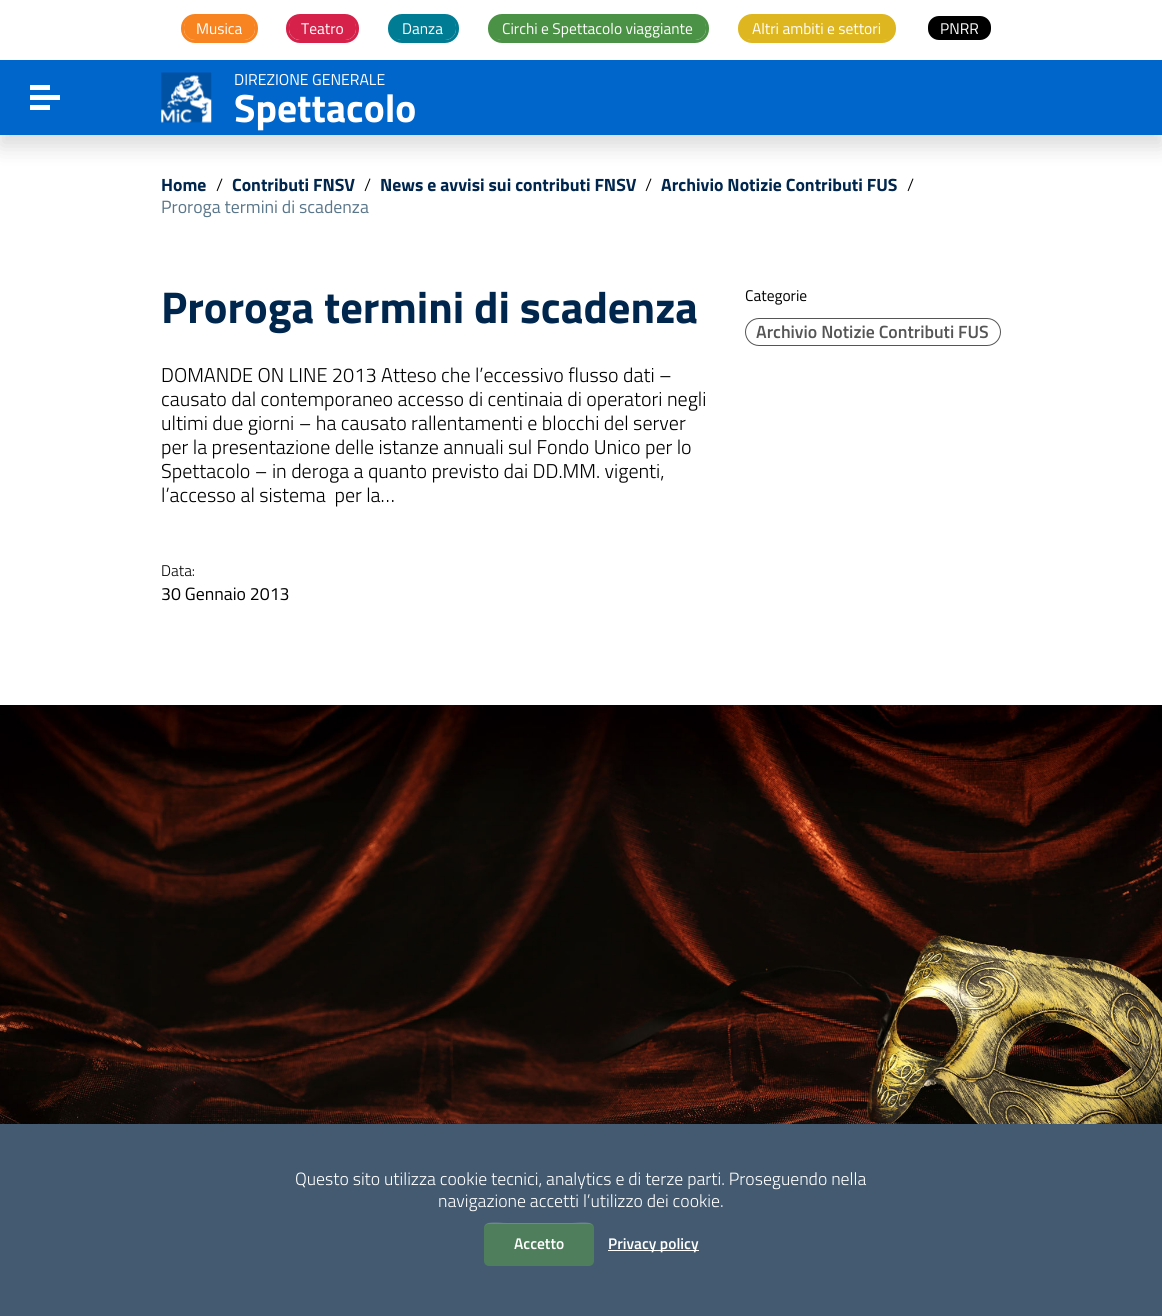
import math
import cairo



def rounded_rect(context, x, y, w, h, r):
    context.new_sub_path()
    for i, (u, v) in enumerate([(x + w - r, y + h - r), (x + r, y + h - r), (x + r, y + r), (x + w - r, y + r)]):
        context.arc(u, v, r, i * math.pi / 2, (i + 1) * math.pi / 2)
    context.close_path()


def draw_shadow(context, x, y, w, h, r, blur, alpha):
    context.push_group_with_content(cairo.Content.ALPHA)
    context.set_operator(cairo.Operator.SOURCE)
    for i in range(15, -16, -2):
        e = blur * i / 6
        if min(w, h) + 2 * e > 0:
            context.set_source_rgba(0, 0, 0, alpha * math.erfc((i - 1) / 8.5) / 2)
            rounded_rect(context, x - e, y - e, w + 2 * e, h + 2 * e, max(0, min(r + e + blur * .6, min(w, h) / 2 + e)))
            context.fill()
    context.mask(context.pop_group())


def draw_image(context, path, x, y, w, h):
    context.save()
    context.set_source_surface(cairo.ImageSurface.create_from_png(path), x, y)
    context.rectangle(x, y, w, h)
    context.fill()
    context.restore()


def draw(context):
    context.set_source_rgb(1, 1, 1)
    context.paint()
    context.set_source_rgb(0, 0, 0)
    draw_shadow(context, 0, 11, 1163, 135, 0, 11, 0.15)
    context.set_source_rgb(0, 102 / 255, 204 / 255)
    context.rectangle(0, 60, 1162, 75)
    context.fill()
    context.set_source_rgb(1, 1, 1)
    context.rectangle(0, 0, 1162, 60)
    context.fill()
    rounded_rect(context, 182.5, 15.5, 74, 26, 12.5)
    context.set_source_rgb(247 / 255, 132 / 255, 33 / 255)
    context.set_line_width(3)
    context.stroke()
    rounded_rect(context, 184, 16, 71, 24, 11)
    context.fill()
    rounded_rect(context, 287.5, 15.5, 70, 26, 12.5)
    context.set_source_rgb(214 / 255, 33 / 255, 74 / 255)
    context.stroke()
    rounded_rect(context, 289, 16, 67, 24, 11)
    context.fill()
    rounded_rect(context, 389.5, 15.5, 68, 26, 12.5)
    context.set_source_rgb(0, 125 / 255, 148 / 255)
    context.stroke()
    rounded_rect(context, 390, 16, 66, 24, 11)
    context.fill()
    rounded_rect(context, 489.5, 15.5, 218, 26, 12.5)
    context.set_source_rgb(76 / 255, 146 / 255, 70 / 255)
    context.stroke()
    rounded_rect(context, 490, 16, 216, 24, 11)
    context.fill()
    rounded_rect(context, 739.5, 15.5, 155, 26, 12.5)
    context.set_source_rgb(222 / 255, 182 / 255, 31 / 255)
    context.stroke()
    rounded_rect(context, 740, 16, 154, 24, 11)
    context.fill()
    context.set_source_rgb(0, 0, 0)
    rounded_rect(context, 928, 16, 63, 24, 11)
    context.fill()
    context.set_source_rgb(1, 1, 1)
    context.rectangle(30, 85, 20, 5)
    context.fill()
    context.rectangle(30, 95, 30, 5)
    context.fill()
    context.rectangle(30, 105, 20, 5)
    context.fill()
    draw_image(context, "images/1.png", 161, 72, 51, 51)
    rounded_rect(context, 745.5, 318.5, 255, 27, 13.5)
    context.set_source_rgb(85 / 255, 85 / 255, 85 / 255)
    context.set_line_width(1)
    context.stroke()
    draw_image(context, "images/2.png", 0, 705, 1162, 419)
    context.set_source_rgb(67 / 255, 90 / 255, 112 / 255)
    context.rectangle(0, 1124, 1162, 192)
    context.fill()
    context.set_source_rgb(78 / 255, 126 / 255, 91 / 255)
    rounded_rect(context, 484, 1223, 110, 43, 5)
    context.fill()
    context.set_source_rgba(1, 1, 1, 0.15)
    context.new_path()
    context.move_to(489, 1224)
    context.line_to(589, 1224)
    context.curve_to(592, 1224, 594, 1226, 594, 1229)
    context.curve_to(594, 1219, 577, 1223, 572, 1223)
    context.line_to(506, 1223)
    context.curve_to(501, 1223, 484, 1219, 484, 1229)
    context.curve_to(484, 1226, 486, 1224, 489, 1224)
    context.close_path()
    context.fill()
    context.set_source_rgb(1, 1, 1)
    context.rectangle(608, 1250, 91, 1)
    context.fill()
    context.select_font_face("Titillium Web")
    context.set_font_size(15.5)
    context.move_to(196, 34)
    context.show_text("Musica")
    context.move_to(301, 34)
    context.show_text("Teatro")
    context.move_to(402, 34)
    context.show_text("Danza")
    context.move_to(502, 34)
    context.show_text("Circhi e Spettacolo viaggiante")
    context.move_to(752, 34)
    context.show_text("Altri ambiti e settori")
    context.move_to(940, 34)
    context.show_text("PNRR")
    context.set_font_size(15.75)
    context.move_to(234, 85)
    context.show_text("DIREZIONE GENERALE")
    context.select_font_face("Titillium Web", cairo.FontSlant.NORMAL, cairo.FontWeight.BOLD)
    context.set_font_size(39.5)
    context.move_to(234, 122)
    context.show_text("Spettacolo")
    context.set_font_size(17.75)
    context.set_source_rgb(0, 38 / 255, 77 / 255)
    context.move_to(161, 191)
    context.show_text("Home")
    context.select_font_face("Titillium Web Light")
    context.set_source_rgb(0, 0, 0)
    context.move_to(216, 191)
    context.show_text("/")
    context.select_font_face("Titillium Web", cairo.FontSlant.NORMAL, cairo.FontWeight.BOLD)
    context.set_source_rgb(0, 38 / 255, 77 / 255)
    context.move_to(232, 191)
    context.show_text("Contributi FNSV")
    context.select_font_face("Titillium Web Light")
    context.set_source_rgb(0, 0, 0)
    context.move_to(364, 191)
    context.show_text("/")
    context.select_font_face("Titillium Web", cairo.FontSlant.NORMAL, cairo.FontWeight.BOLD)
    context.set_source_rgb(0, 38 / 255, 77 / 255)
    context.move_to(380, 191)
    context.show_text("News e avvisi sui contributi FNSV")
    context.select_font_face("Titillium Web Light")
    context.set_source_rgb(0, 0, 0)
    context.move_to(645, 191)
    context.show_text("/")
    context.select_font_face("Titillium Web", cairo.FontSlant.NORMAL, cairo.FontWeight.BOLD)
    context.set_source_rgb(0, 38 / 255, 77 / 255)
    context.move_to(661, 191)
    context.show_text("Archivio Notizie Contributi FUS")
    context.select_font_face("Titillium Web Light")
    context.set_source_rgb(0, 0, 0)
    context.move_to(907, 191)
    context.show_text("/")
    context.select_font_face("Titillium Web")
    context.set_source_rgb(90 / 255, 118 / 255, 138 / 255)
    context.move_to(161, 213)
    context.show_text("Proroga termini di scadenza")
    context.select_font_face("Titillium Web", cairo.FontSlant.NORMAL, cairo.FontWeight.BOLD)
    context.set_font_size(44.5)
    context.set_source_rgb(0, 38 / 255, 77 / 255)
    context.move_to(161, 323)
    context.show_text("Proroga termini di scadenza")
    context.select_font_face("Titillium Web Light")
    context.set_font_size(20)
    context.set_source_rgb(0, 0, 0)
    context.move_to(161, 382)
    context.show_text("DOMANDE ON LINE 2013 Atteso che l’eccessivo flusso dati –")
    context.move_to(161, 406)
    context.show_text("causato dal contemporaneo accesso di centinaia di operatori negli")
    context.move_to(161, 430)
    context.show_text("ultimi due giorni – ha causato rallentamenti e blocchi del server")
    context.move_to(161, 454)
    context.show_text("per la presentazione delle istanze annuali sul Fondo Unico per lo")
    context.move_to(161, 478)
    context.show_text("Spettacolo – in deroga a quanto previsto dai DD.MM. vigenti,")
    context.move_to(161, 502)
    context.show_text("l’accesso al sistema  per la…")
    context.select_font_face("Titillium Web")
    context.set_font_size(15.5)
    context.move_to(745, 301)
    context.show_text("Categorie")
    context.select_font_face("Titillium Web SemiBold")
    context.set_font_size(17.75)
    context.set_source_rgb(85 / 255, 85 / 255, 85 / 255)
    context.move_to(756, 338)
    context.show_text("Archivio Notizie Contributi FUS")
    context.select_font_face("Titillium Web Light")
    context.set_font_size(15.5)
    context.set_source_rgb(0, 0, 0)
    context.move_to(161, 576)
    context.show_text("Data:")
    context.select_font_face("Titillium Web")
    context.set_font_size(17.75)
    context.move_to(161, 600)
    context.show_text("30 Gennaio 2013")
    context.select_font_face("Titillium Web Light")
    context.set_source_rgb(1, 1, 1)
    context.move_to(295, 1185)
    context.show_text("Questo sito utilizza cookie tecnici, analytics e di terze parti. Proseguendo nella")
    context.move_to(438, 1207)
    context.show_text("navigazione accetti l’utilizzo dei cookie.")
    context.select_font_face("Titillium Web SemiBold")
    context.set_font_size(15.5)
    context.move_to(514, 1249)
    context.show_text("Accetto")
    context.move_to(608, 1249)
    context.show_text("Privacy policy")


surface = cairo.ImageSurface(cairo.Format.RGB24, 1162, 1316)
context = cairo.Context(surface)
options = cairo.FontOptions()
options.set_hint_metrics(cairo.HintMetrics.OFF)
options.set_hint_style(cairo.HintStyle.NONE)
context.set_font_options(options)
context.set_miter_limit(4)
draw(context)
surface.write_to_png("out.png")
